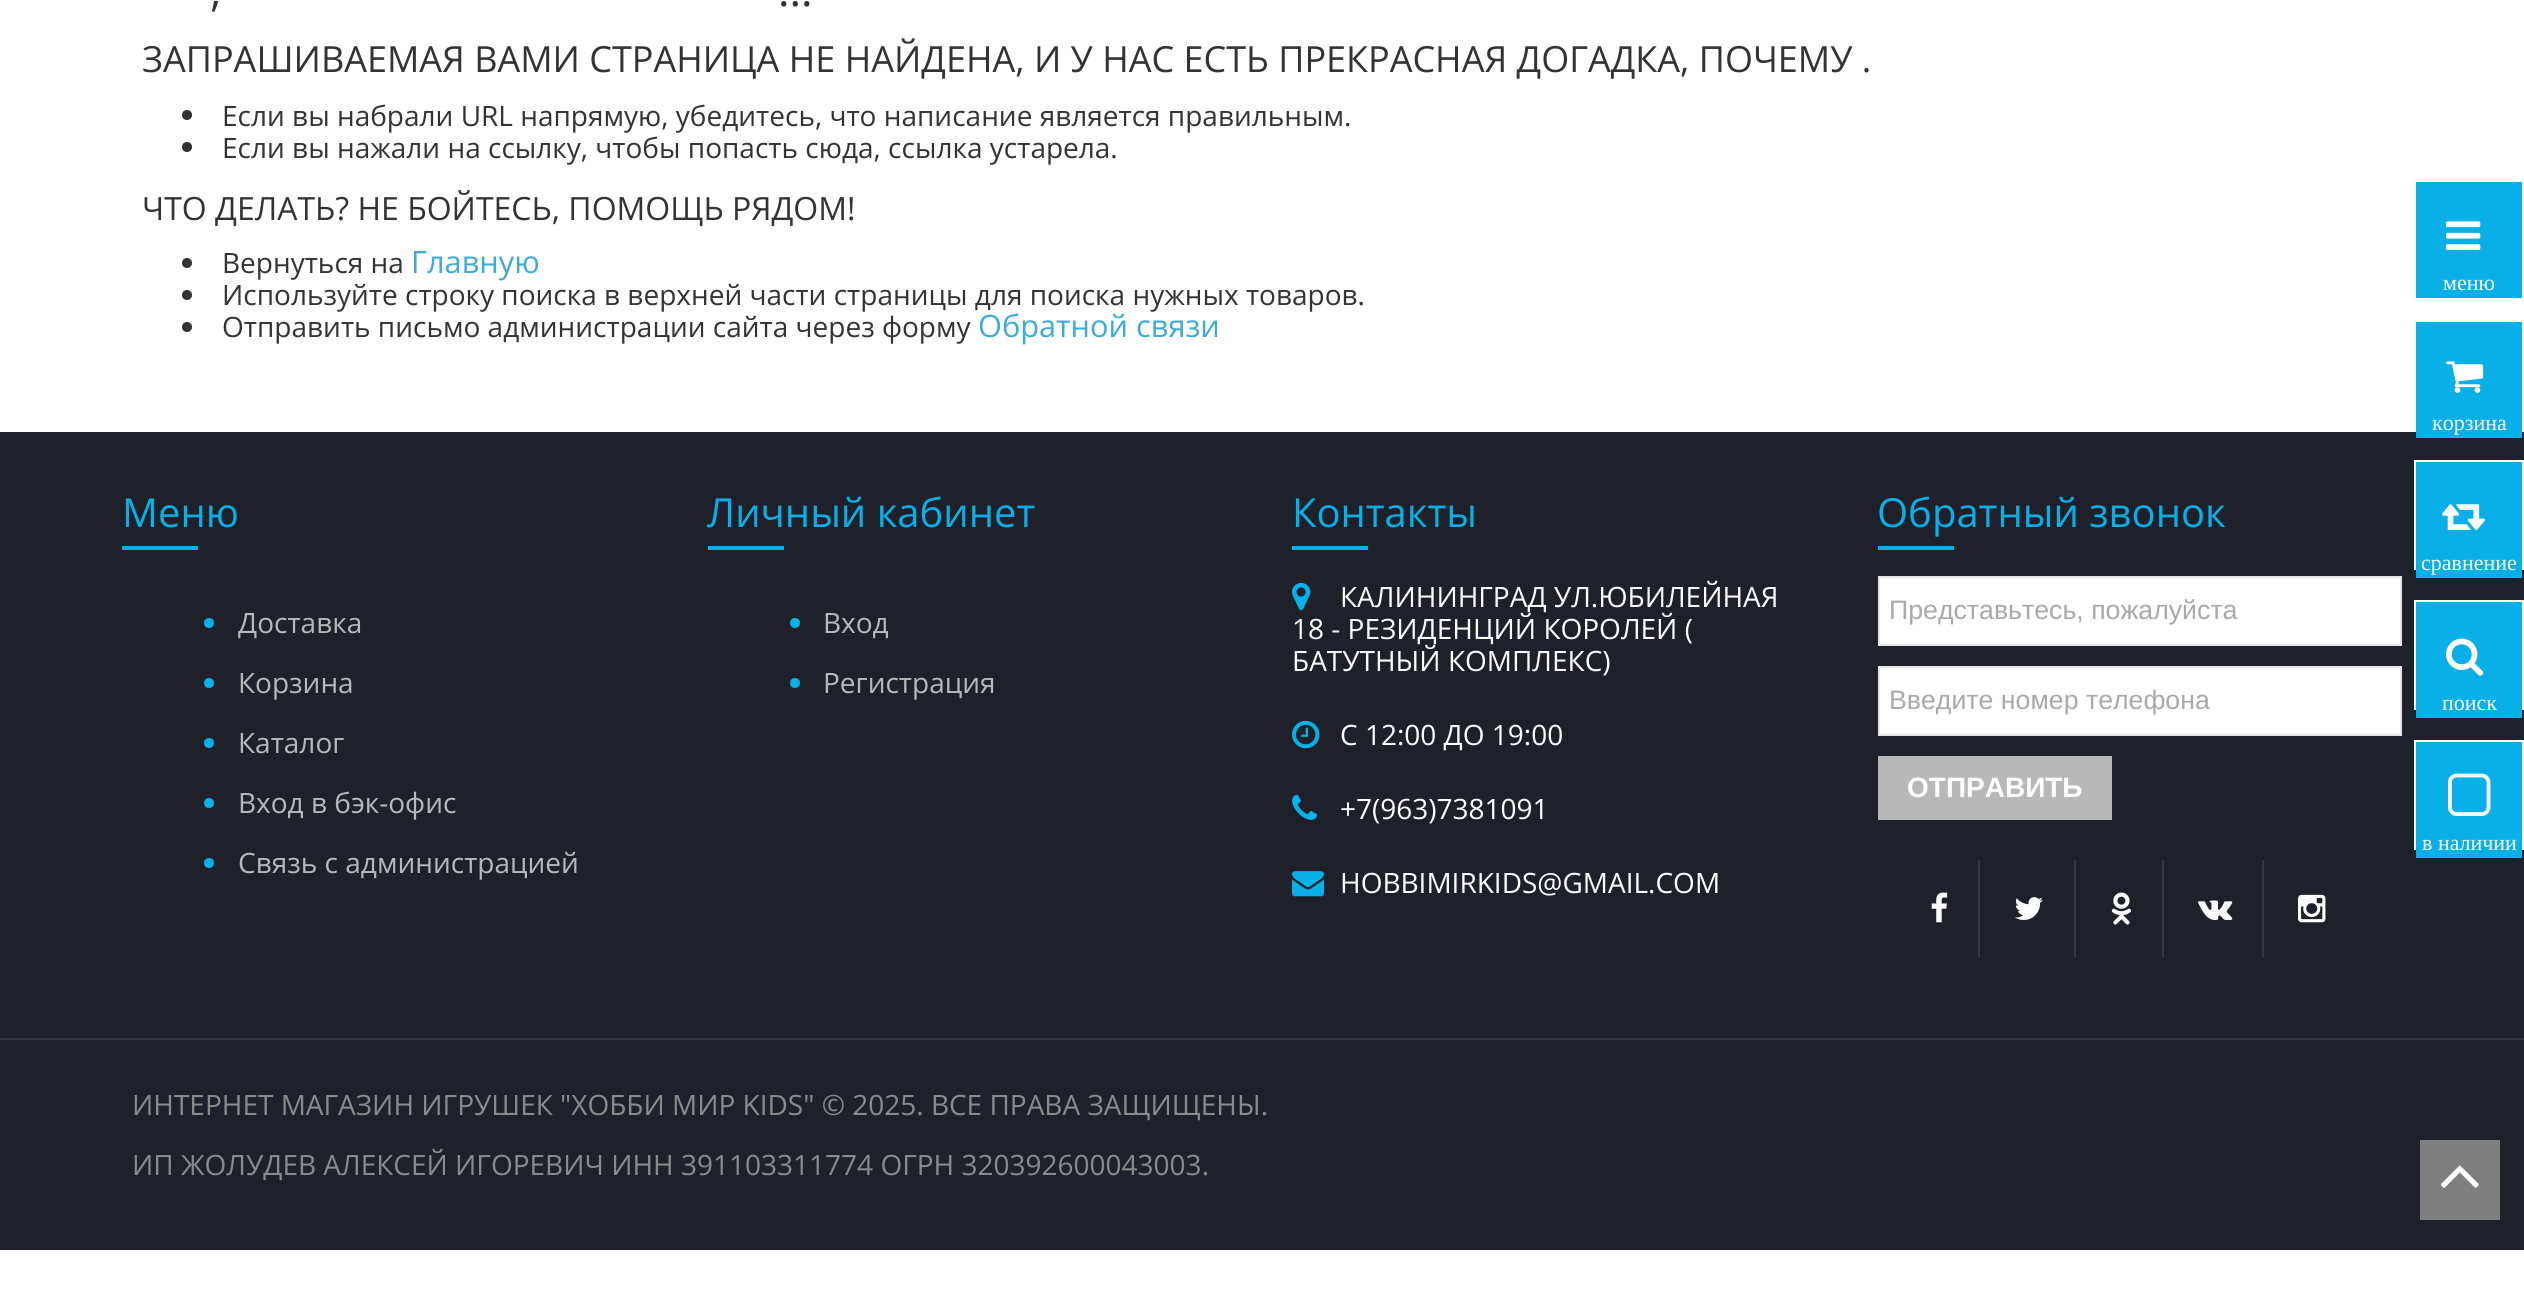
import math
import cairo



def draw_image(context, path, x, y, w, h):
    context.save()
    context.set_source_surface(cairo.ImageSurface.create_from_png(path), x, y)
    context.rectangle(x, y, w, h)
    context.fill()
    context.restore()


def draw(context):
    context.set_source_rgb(1, 1, 1)
    context.paint()
    context.set_source_rgb(51 / 255, 51 / 255, 51 / 255)
    context.arc(187, 115, 5, 0, 2 * math.pi)
    context.fill()
    context.arc(187, 147, 5, 0, 2 * math.pi)
    context.fill()
    context.arc(187, 263, 5, 0, 2 * math.pi)
    context.fill()
    context.arc(187, 295, 5, 0, 2 * math.pi)
    context.fill()
    context.arc(187, 327, 5, 0, 2 * math.pi)
    context.fill()
    context.set_source_rgb(30 / 255, 33 / 255, 42 / 255)
    context.rectangle(0, 432, 2524, 606)
    context.fill()
    context.set_source_rgb(9 / 255, 175 / 255, 231 / 255)
    context.rectangle(122, 546, 76, 4)
    context.fill()
    context.arc(209, 623, 5, 0, 2 * math.pi)
    context.fill()
    context.arc(209, 683, 5, 0, 2 * math.pi)
    context.fill()
    context.arc(209, 743, 5, 0, 2 * math.pi)
    context.fill()
    context.arc(209, 803, 5, 0, 2 * math.pi)
    context.fill()
    context.arc(209, 863, 5, 0, 2 * math.pi)
    context.fill()
    context.rectangle(708, 546, 76, 4)
    context.fill()
    context.arc(795, 623, 5, 0, 2 * math.pi)
    context.fill()
    context.arc(795, 683, 5, 0, 2 * math.pi)
    context.fill()
    context.rectangle(1292, 546, 76, 4)
    context.fill()
    draw_image(context, "images/1.png", 1292, 582, 19, 29)
    draw_image(context, "images/2.png", 1292, 720, 28, 29)
    draw_image(context, "images/3.png", 1292, 794, 26, 26)
    draw_image(context, "images/4.png", 1292, 871, 32, 26)
    context.rectangle(1878, 546, 76, 4)
    context.fill()
    context.set_source_rgb(1, 1, 1)
    context.rectangle(1879, 577, 522, 68)
    context.fill_preserve()
    context.set_source_rgb(229 / 255, 229 / 255, 229 / 255)
    context.stroke()
    context.set_source_rgb(1, 1, 1)
    context.rectangle(1879, 667, 522, 68)
    context.fill_preserve()
    context.set_source_rgb(229 / 255, 229 / 255, 229 / 255)
    context.stroke()
    context.set_source_rgb(184 / 255, 184 / 255, 184 / 255)
    context.rectangle(1878, 756, 234, 64)
    context.fill()
    context.set_source_rgb(51 / 255, 55 / 255, 68 / 255)
    context.rectangle(1978, 860, 2, 98)
    context.fill()
    draw_image(context, "images/5.png", 1931, 892, 17, 31)
    context.rectangle(2074, 860, 2, 98)
    context.fill()
    draw_image(context, "images/6.png", 2015, 897, 28, 23)
    context.rectangle(2162, 860, 2, 98)
    context.fill()
    draw_image(context, "images/7.png", 2111, 892, 20, 33)
    context.rectangle(2262, 860, 2, 98)
    context.fill()
    draw_image(context, "images/8.png", 2198, 900, 35, 20)
    draw_image(context, "images/9.png", 2298, 894, 28, 29)
    context.set_source_rgb(30 / 255, 33 / 255, 42 / 255)
    context.rectangle(0, 1040, 2524, 210)
    context.fill()
    context.set_source_rgb(51 / 255, 55 / 255, 68 / 255)
    context.rectangle(0, 1038, 2524, 2)
    context.fill()
    context.set_source_rgb(127 / 255, 127 / 255, 127 / 255)
    context.rectangle(2420, 1140, 80, 80)
    context.fill()
    draw_image(context, "images/10.png", 2440, 1165, 39, 23)
    context.set_source_rgb(9 / 255, 175 / 255, 231 / 255)
    context.rectangle(2416, 182, 106, 116)
    context.fill()
    draw_image(context, "images/11.png", 2446, 221, 35, 29)
    context.rectangle(2416, 322, 106, 116)
    context.fill()
    draw_image(context, "images/12.png", 2446, 361, 38, 32)
    context.rectangle(2416, 462, 106, 86)
    context.fill()
    context.rectangle(2415, 461, 108, 108)
    context.set_source_rgb(1, 1, 1)
    context.stroke()
    draw_image(context, "images/13.png", 2442, 504, 43, 26)
    context.set_source_rgb(9 / 255, 175 / 255, 231 / 255)
    context.rectangle(2416, 548, 106, 30)
    context.fill()
    context.rectangle(2416, 602, 106, 86)
    context.fill()
    context.rectangle(2415, 601, 108, 108)
    context.set_source_rgb(1, 1, 1)
    context.stroke()
    draw_image(context, "images/14.png", 2446, 638, 38, 38)
    context.set_source_rgb(9 / 255, 175 / 255, 231 / 255)
    context.rectangle(2416, 688, 106, 30)
    context.fill()
    context.rectangle(2416, 742, 106, 86)
    context.fill()
    context.rectangle(2415, 741, 108, 108)
    context.set_source_rgb(1, 1, 1)
    context.stroke()
    draw_image(context, "images/15.png", 2448, 773, 43, 43)
    context.set_source_rgb(9 / 255, 175 / 255, 231 / 255)
    context.rectangle(2416, 828, 106, 30)
    context.fill()
    context.select_font_face("Open Sans")
    context.set_font_size(44)
    context.set_source_rgb(51 / 255, 51 / 255, 51 / 255)
    context.move_to(210, 6)
    context.show_text(",")
    context.move_to(778, 6)
    context.show_text("...")
    context.set_font_size(36)
    context.move_to(142, 72)
    context.show_text("ЗАПРАШИВАЕМАЯ ВАМИ СТРАНИЦА НЕ НАЙДЕНА, И У НАС ЕСТЬ ПРЕКРАСНАЯ ДОГАДКА, ПОЧЕМУ .")
    context.set_font_size(28)
    context.move_to(222, 126)
    context.show_text("Если вы набрали URL напрямую, убедитесь, что написание является правильным.")
    context.move_to(222, 158)
    context.show_text("Если вы нажали на ссылку, чтобы попасть сюда, ссылка устарела.")
    context.set_font_size(32)
    context.move_to(142, 220)
    context.show_text("ЧТО ДЕЛАТЬ? НЕ БОЙТЕСЬ, ПОМОЩЬ РЯДОМ!")
    context.set_font_size(28)
    context.move_to(222, 273)
    context.show_text("Вернуться на")
    context.set_font_size(30.75)
    context.set_source_rgb(60 / 255, 171 / 255, 218 / 255)
    context.move_to(411, 273)
    context.show_text("Главную")
    context.set_font_size(28)
    context.set_source_rgb(51 / 255, 51 / 255, 51 / 255)
    context.move_to(222, 305)
    context.show_text("Используйте строку поиска в верхней части страницы для поиска нужных товаров.")
    context.move_to(222, 337)
    context.show_text("Отправить письмо админиcтрации сайта через форму")
    context.set_font_size(30.75)
    context.set_source_rgb(60 / 255, 171 / 255, 218 / 255)
    context.move_to(978, 337)
    context.show_text("Обратной связи")
    context.set_font_size(40)
    context.set_source_rgb(9 / 255, 175 / 255, 231 / 255)
    context.move_to(122, 527)
    context.show_text("Меню")
    context.set_font_size(28)
    context.set_source_rgb(184 / 255, 184 / 255, 184 / 255)
    context.move_to(238, 633)
    context.show_text("Доставка")
    context.move_to(238, 693)
    context.show_text("Корзина")
    context.move_to(238, 753)
    context.show_text("Каталог")
    context.move_to(238, 813)
    context.show_text("Вход в бэк-офис")
    context.move_to(238, 873)
    context.show_text("Связь с администрацией")
    context.set_font_size(40)
    context.set_source_rgb(9 / 255, 175 / 255, 231 / 255)
    context.move_to(707, 527)
    context.show_text("Личный кабинет")
    context.set_font_size(28)
    context.set_source_rgb(184 / 255, 184 / 255, 184 / 255)
    context.move_to(823, 633)
    context.show_text("Вход")
    context.move_to(823, 693)
    context.show_text("Регистрация")
    context.set_font_size(40)
    context.set_source_rgb(9 / 255, 175 / 255, 231 / 255)
    context.move_to(1292, 527)
    context.show_text("Контакты")
    context.set_font_size(28)
    context.set_source_rgb(1, 1, 1)
    context.move_to(1340, 607)
    context.show_text("КАЛИНИНГРАД УЛ.ЮБИЛЕЙНАЯ")
    context.move_to(1292, 639)
    context.show_text("18 - РЕЗИДЕНЦИЙ КОРОЛЕЙ (")
    context.move_to(1292, 671)
    context.show_text("БАТУТНЫЙ КОМПЛЕКС)")
    context.move_to(1340, 745)
    context.show_text("С 12:00 ДО 19:00")
    context.move_to(1340, 819)
    context.show_text("+7(963)7381091")
    context.move_to(1340, 893)
    context.show_text("HOBBIMIRKIDS@GMAIL.COM")
    context.set_font_size(40)
    context.set_source_rgb(9 / 255, 175 / 255, 231 / 255)
    context.move_to(1877, 527)
    context.show_text("Обратный звонок")
    context.select_font_face("Liberation Sans")
    context.set_font_size(26.7)
    context.set_source_rgb(169 / 255, 169 / 255, 169 / 255)
    context.move_to(1889, 619)
    context.show_text("Представьтесь, пожалуйста")
    context.move_to(1889, 709)
    context.show_text("Введите номер телефона")
    context.select_font_face("Liberation Sans", cairo.FontSlant.NORMAL, cairo.FontWeight.BOLD)
    context.set_font_size(28)
    context.set_source_rgb(1, 1, 1)
    context.move_to(1907, 797)
    context.show_text("ОТПРАВИТЬ")
    context.select_font_face("Open Sans")
    context.set_source_rgb(138 / 255, 138 / 255, 138 / 255)
    context.move_to(132, 1115)
    context.show_text("ИНТЕРНЕТ МАГАЗИН ИГРУШЕК \"ХОББИ МИР KIDS\" © 2025. ВСЕ ПРАВА ЗАЩИЩЕНЫ.")
    context.move_to(132, 1175)
    context.show_text("ИП ЖОЛУДЕВ АЛЕКСЕЙ ИГОРЕВИЧ ИНН 391103311774 ОГРН 320392600043003.")
    context.select_font_face("Liberation Serif")
    context.set_font_size(22)
    context.set_source_rgb(1, 1, 1)
    context.move_to(2443, 290)
    context.show_text("меню")
    context.move_to(2432, 430)
    context.show_text("корзина")
    context.move_to(2421, 570)
    context.show_text("сравнение")
    context.move_to(2442, 710)
    context.show_text("поиск")
    context.move_to(2422, 850)
    context.show_text("в наличии")


surface = cairo.ImageSurface(cairo.Format.RGB24, 2524, 1289)
context = cairo.Context(surface)
options = cairo.FontOptions()
options.set_hint_metrics(cairo.HintMetrics.OFF)
options.set_hint_style(cairo.HintStyle.NONE)
context.set_font_options(options)
context.set_miter_limit(4)
draw(context)
surface.write_to_png("out.png")
